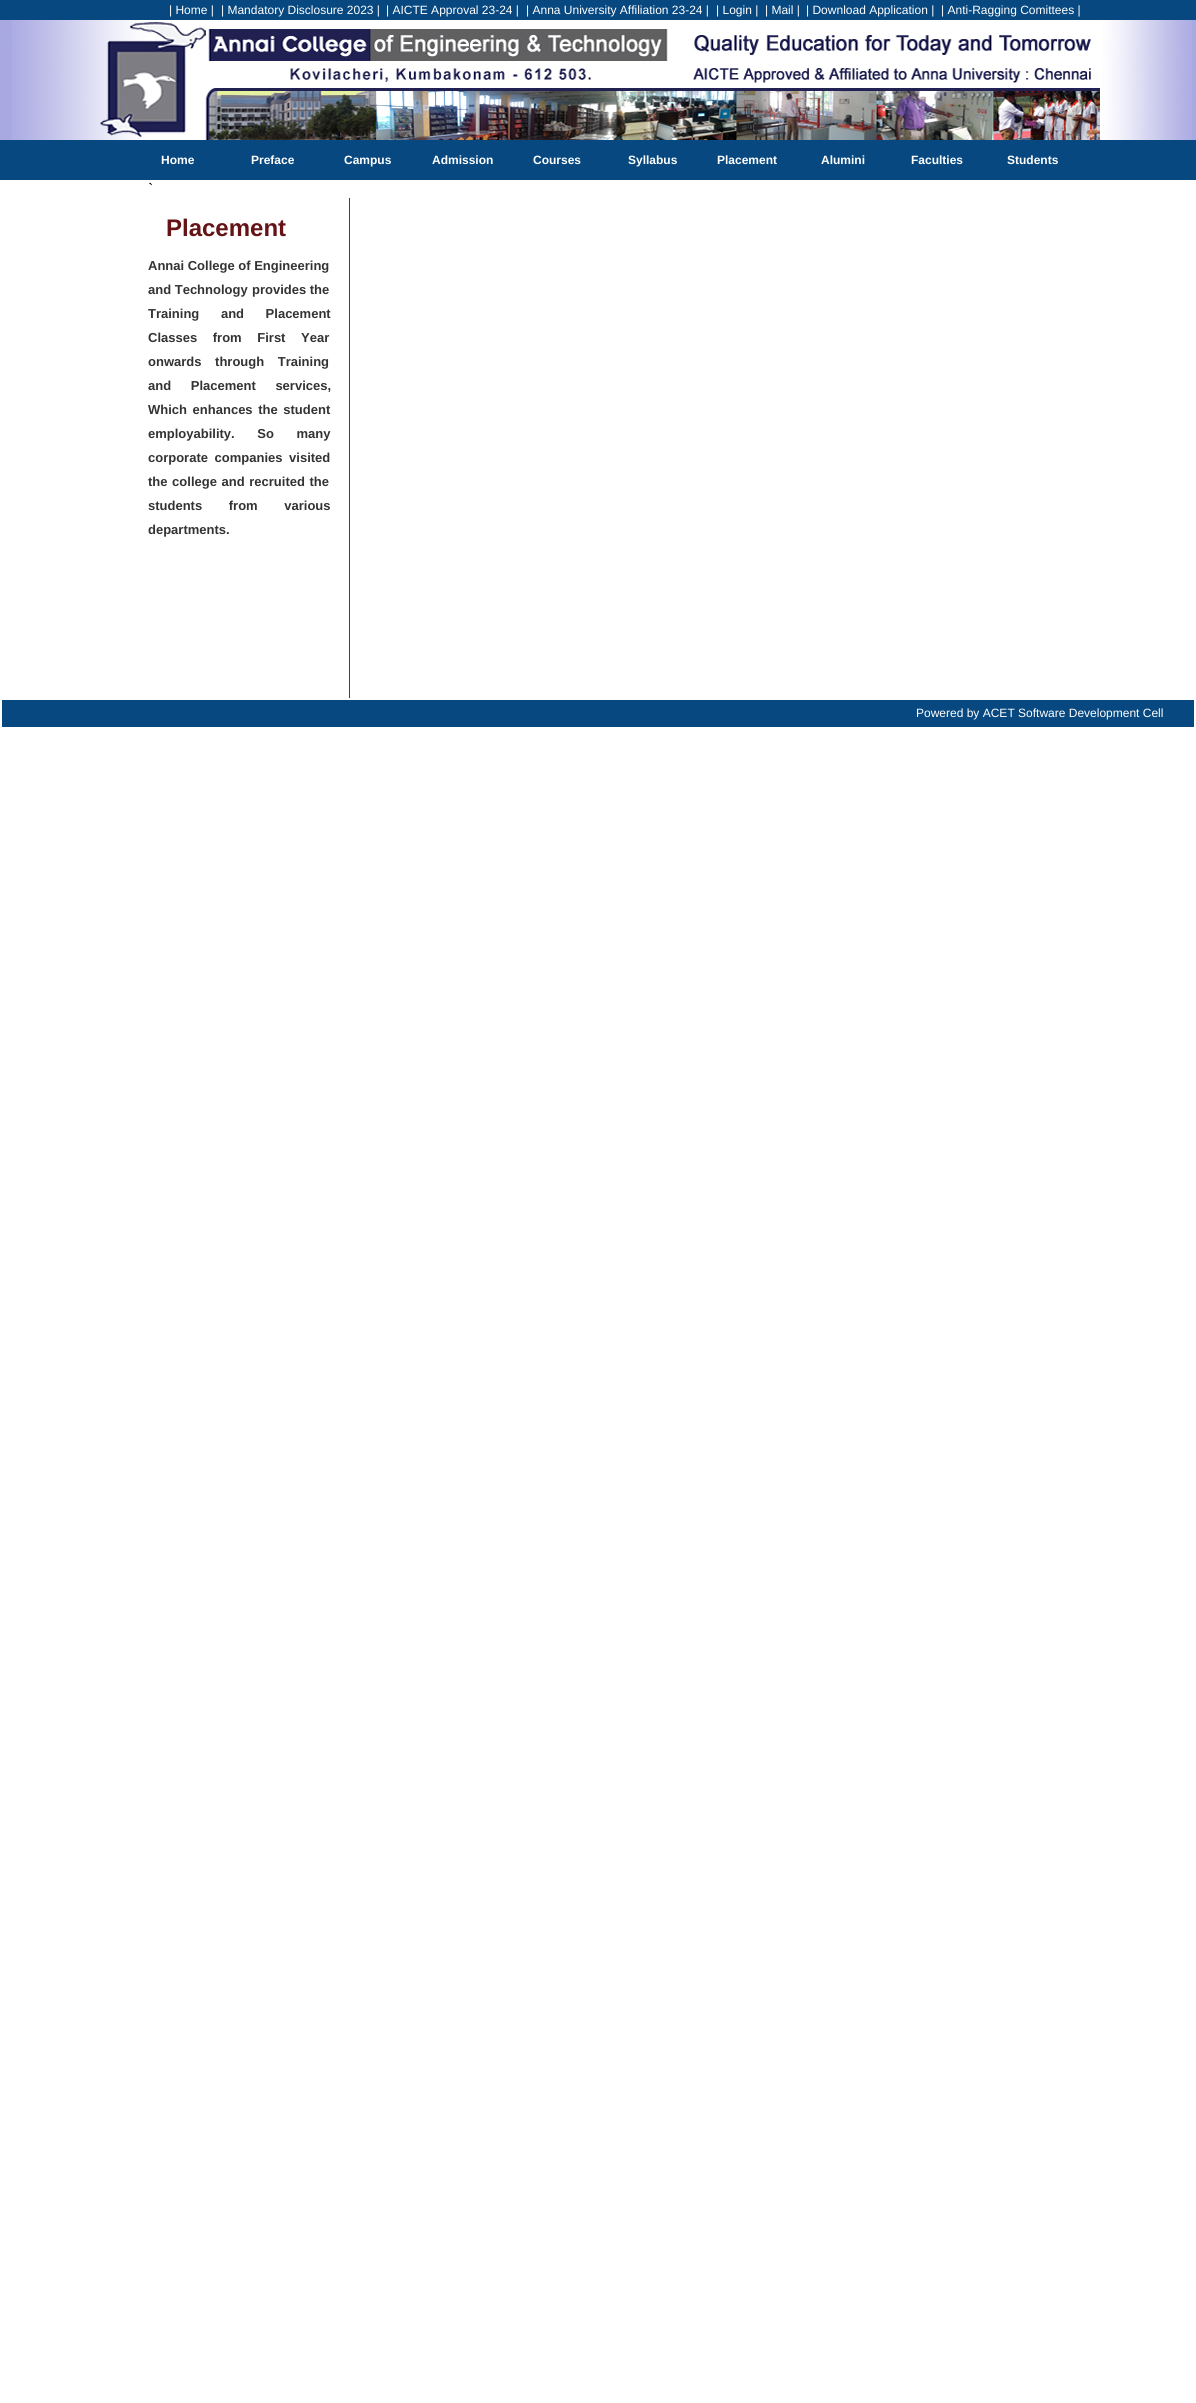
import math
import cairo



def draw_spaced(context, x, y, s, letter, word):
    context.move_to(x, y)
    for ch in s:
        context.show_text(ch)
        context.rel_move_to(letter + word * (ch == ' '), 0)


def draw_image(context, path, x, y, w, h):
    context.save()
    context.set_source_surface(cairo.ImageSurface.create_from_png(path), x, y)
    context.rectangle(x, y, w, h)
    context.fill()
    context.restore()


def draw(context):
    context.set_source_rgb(1, 1, 1)
    context.paint()
    context.set_source_rgb(7 / 255, 72 / 255, 128 / 255)
    context.rectangle(0, 0, 1196, 20)
    context.fill()
    context.set_source_rgb(169 / 255, 169 / 255, 225 / 255)
    context.rectangle(0, 20, 1196, 120)
    context.fill()
    draw_image(context, "images/1.png", 12, 20, 1180, 120)
    context.set_source_rgb(7 / 255, 72 / 255, 128 / 255)
    context.rectangle(0, 140, 1196, 40)
    context.fill()
    context.set_source_rgb(26 / 255, 67 / 255, 163 / 255)
    context.rectangle(349, 198, 1, 500)
    context.fill()
    context.set_source_rgb(7 / 255, 72 / 255, 128 / 255)
    context.rectangle(2, 700, 1192, 27)
    context.fill()
    context.select_font_face("Liberation Sans")
    context.set_font_size(12)
    context.set_source_rgb(1, 1, 1)
    context.move_to(169, 14)
    context.show_text("| Home |")
    context.move_to(221, 14)
    context.show_text("| Mandatory Disclosure 2023 |")
    context.move_to(386, 14)
    context.show_text("| AICTE Approval 23-24 |")
    context.move_to(526, 14)
    context.show_text("| Anna University Affiliation 23-24 |")
    context.move_to(716, 14)
    context.show_text("| Login |")
    context.move_to(765, 14)
    context.show_text("| Mail |")
    context.move_to(806, 14)
    context.show_text("| Download Application |")
    context.move_to(941, 14)
    context.show_text("| Anti-Ragging Comittees |")
    context.select_font_face("Liberation Sans", cairo.FontSlant.NORMAL, cairo.FontWeight.BOLD)
    context.move_to(161, 164)
    context.show_text("Home")
    context.move_to(251, 164)
    context.show_text("Preface")
    context.move_to(344, 164)
    context.show_text("Campus")
    context.move_to(432, 164)
    context.show_text("Admission")
    context.move_to(533, 164)
    context.show_text("Courses")
    context.move_to(628, 164)
    context.show_text("Syllabus")
    context.move_to(717, 164)
    context.show_text("Placement")
    context.move_to(821, 164)
    context.show_text("Alumini")
    context.move_to(911, 164)
    context.show_text("Faculties")
    context.move_to(1007, 164)
    context.show_text("Students")
    context.select_font_face("Liberation Serif")
    context.set_font_size(16)
    context.set_source_rgb(0, 0, 0)
    context.move_to(148, 194)
    context.show_text("`")
    context.select_font_face("Liberation Sans", cairo.FontSlant.NORMAL, cairo.FontWeight.BOLD)
    context.set_font_size(24)
    context.set_source_rgb(100 / 255, 19 / 255, 22 / 255)
    context.move_to(166, 236)
    context.show_text("Placement")
    context.set_font_size(13)
    context.set_source_rgb(51 / 255, 51 / 255, 51 / 255)
    context.move_to(148, 270)
    context.show_text("Annai College of Engineering")
    context.move_to(148, 294)
    context.show_text("and Technology")
    context.move_to(252, 294)
    context.show_text("provides the")
    draw_spaced(context, 148, 318, "Training and Placement", 0, 18)
    draw_spaced(context, 148, 342, "Classes from First Year", 0, 12)
    draw_spaced(context, 148, 366, "onwards through Training", 0, 10)
    draw_spaced(context, 148, 390, "and Placement services,", 0, 16)
    draw_spaced(context, 148, 414, "Which enhances the student", 0, 2)
    draw_spaced(context, 148, 438, "employability. So many", 0, 19)
    draw_spaced(context, 148, 462, "corporate companies visited", 0, 3)
    draw_spaced(context, 148, 486, "the college and recruited the", 0, 1)
    draw_spaced(context, 148, 510, "students from various", 0, 23)
    context.move_to(148, 534)
    context.show_text("departments.")
    context.select_font_face("Liberation Sans")
    context.set_font_size(12)
    context.set_source_rgb(1, 1, 1)
    context.move_to(916, 717)
    context.show_text("Powered by ACET Software Development Cell")


surface = cairo.ImageSurface(cairo.Format.RGB24, 1196, 2403)
context = cairo.Context(surface)
options = cairo.FontOptions()
options.set_hint_metrics(cairo.HintMetrics.OFF)
options.set_hint_style(cairo.HintStyle.NONE)
context.set_font_options(options)
context.set_miter_limit(4)
draw(context)
surface.write_to_png("out.png")
